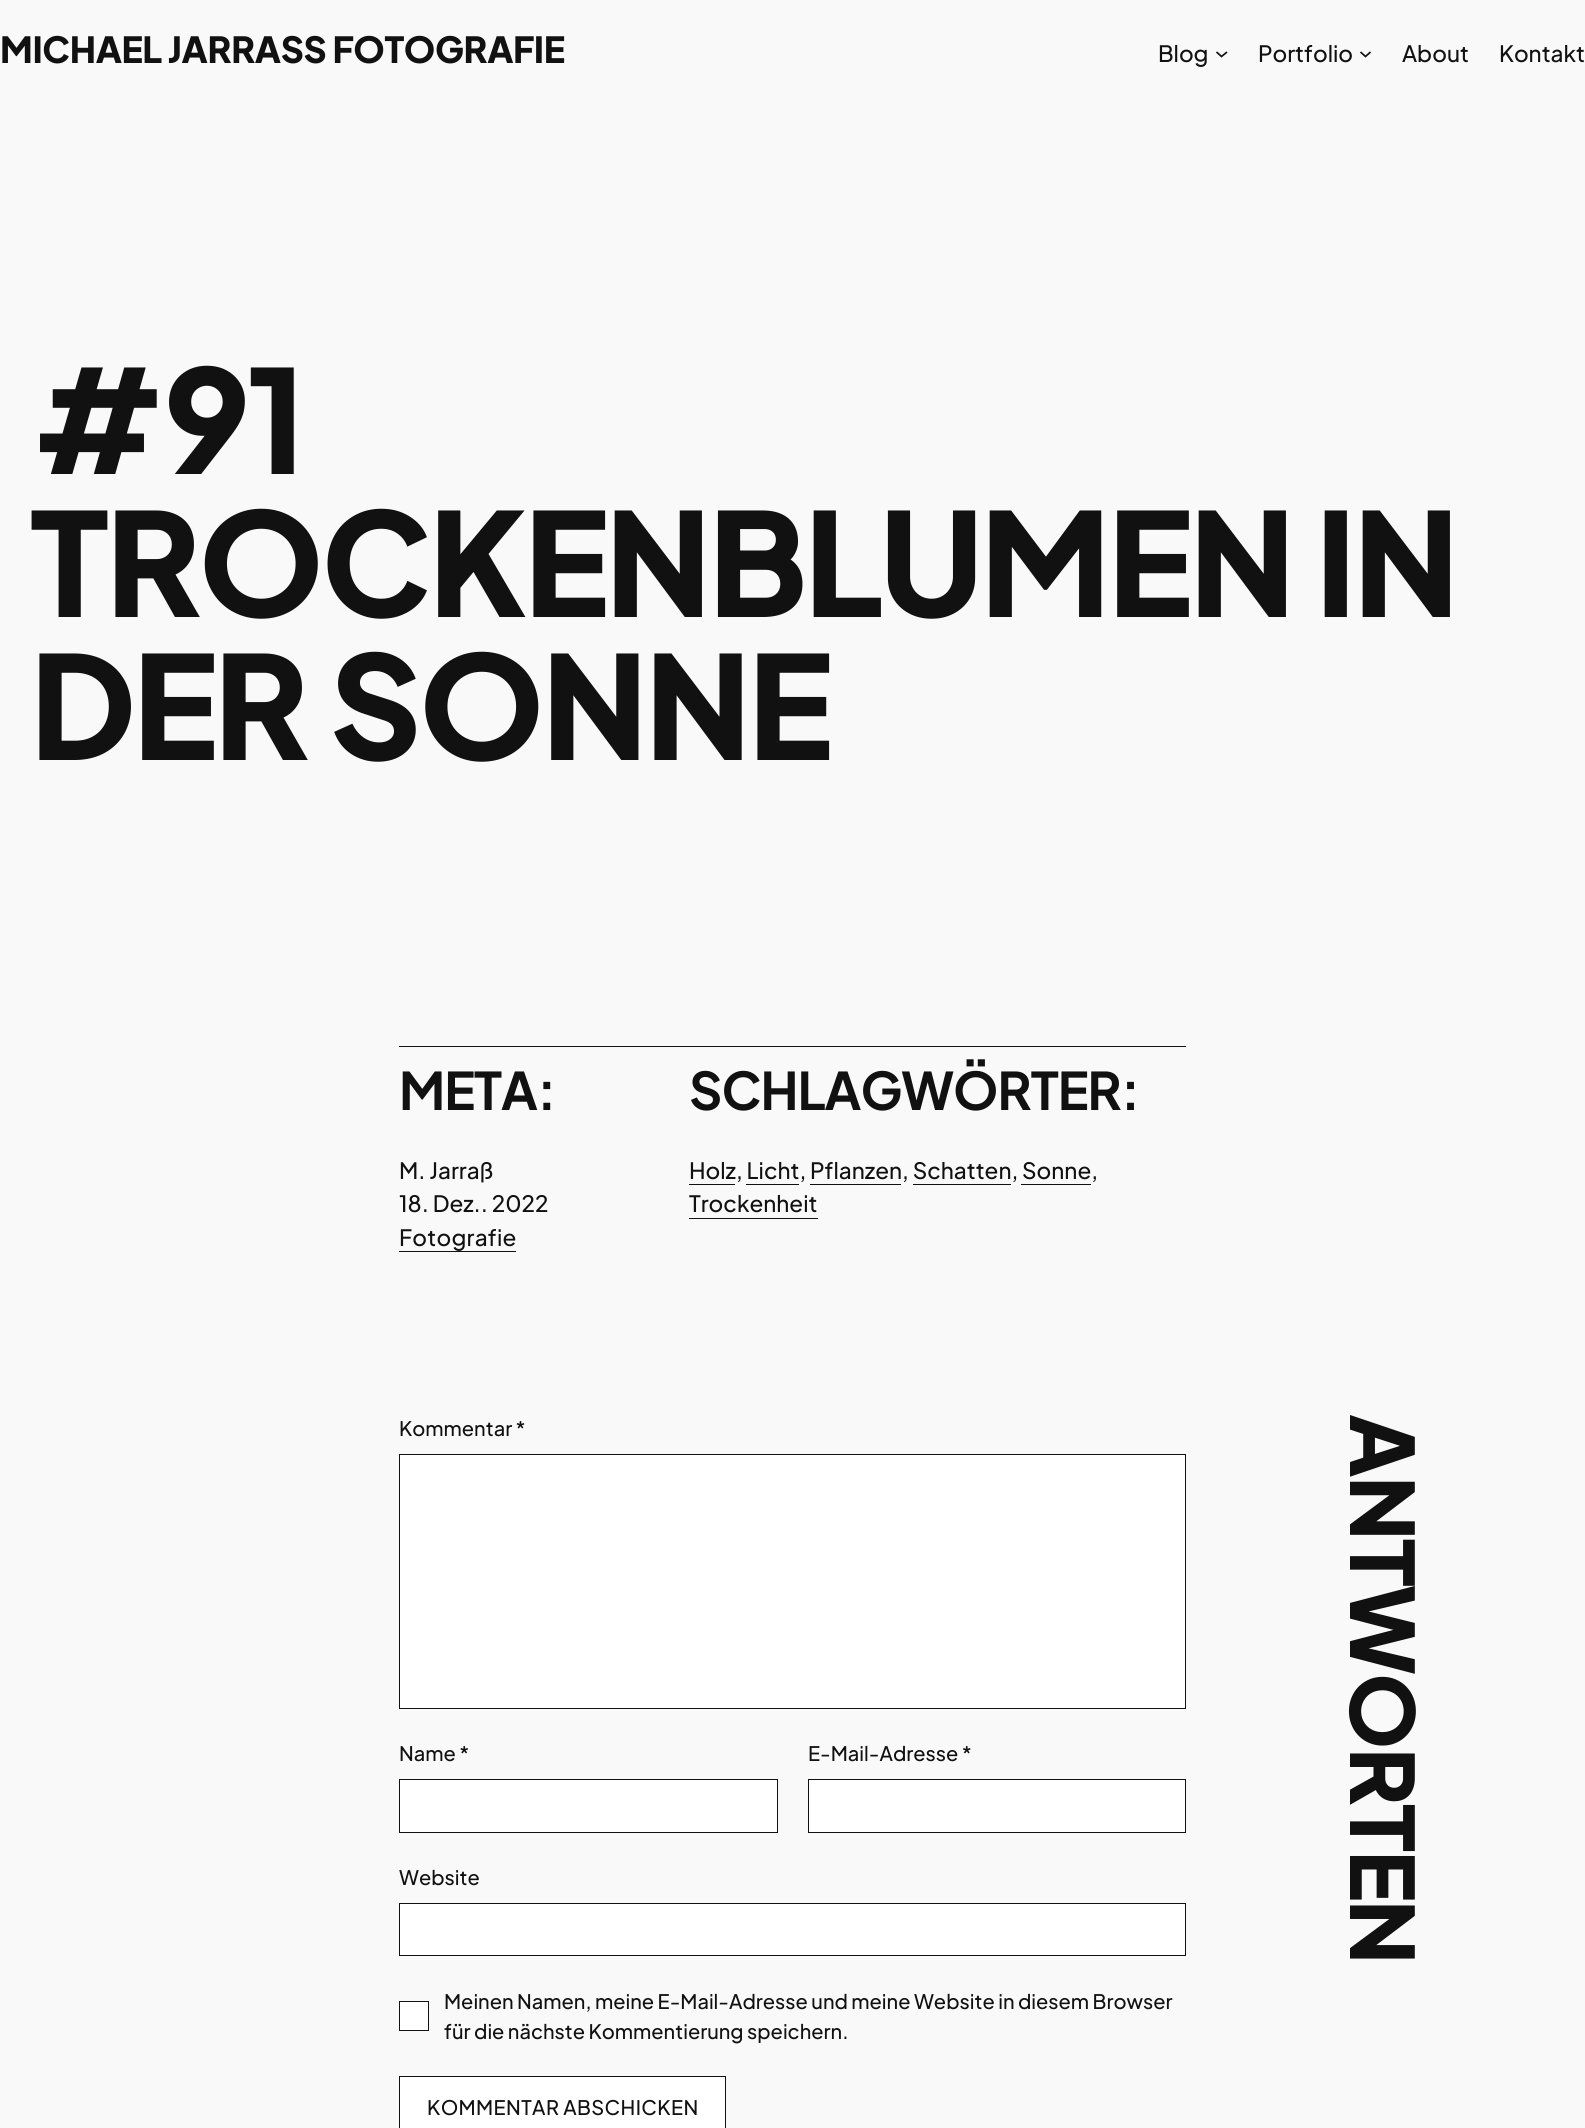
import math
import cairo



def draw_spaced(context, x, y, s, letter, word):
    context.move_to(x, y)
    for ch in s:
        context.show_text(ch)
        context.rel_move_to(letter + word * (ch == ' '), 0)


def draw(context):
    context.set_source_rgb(249 / 255, 249 / 255, 249 / 255)
    context.paint()
    context.new_path()
    context.move_to(1216.5, 52)
    context.line_to(1221.5, 56.5)
    context.line_to(1227, 52)
    context.set_source_rgb(17 / 255, 17 / 255, 17 / 255)
    context.set_line_width(1.7)
    context.stroke()
    context.new_path()
    context.move_to(1360.5, 52)
    context.line_to(1365.5, 56.5)
    context.line_to(1370.5, 52)
    context.stroke()
    context.rectangle(399, 1046, 787, 1)
    context.fill()
    context.rectangle(399, 1251, 117, 1)
    context.fill()
    context.rectangle(689, 1184, 46, 1)
    context.fill()
    context.rectangle(746, 1184, 53, 1)
    context.fill()
    context.rectangle(810, 1184, 91, 1)
    context.fill()
    context.rectangle(913, 1184, 98, 1)
    context.fill()
    context.rectangle(1021, 1184, 70, 1)
    context.fill()
    context.rectangle(689, 1218, 129, 1)
    context.fill()
    context.set_source_rgb(1, 1, 1)
    context.rectangle(399.5, 1454.5, 786, 254)
    context.fill_preserve()
    context.set_source_rgb(17 / 255, 17 / 255, 17 / 255)
    context.set_line_width(1)
    context.stroke()
    context.set_source_rgb(1, 1, 1)
    context.rectangle(399.5, 1779.5, 378, 53)
    context.fill_preserve()
    context.set_source_rgb(17 / 255, 17 / 255, 17 / 255)
    context.stroke()
    context.set_source_rgb(1, 1, 1)
    context.rectangle(808.5, 1779.5, 377, 53)
    context.fill_preserve()
    context.set_source_rgb(17 / 255, 17 / 255, 17 / 255)
    context.stroke()
    context.set_source_rgb(1, 1, 1)
    context.rectangle(399.5, 1903.5, 786, 52)
    context.fill_preserve()
    context.set_source_rgb(17 / 255, 17 / 255, 17 / 255)
    context.stroke()
    context.set_source_rgb(1, 1, 1)
    context.rectangle(399.5, 2001.5, 29, 29)
    context.fill_preserve()
    context.set_source_rgb(17 / 255, 17 / 255, 17 / 255)
    context.stroke()
    context.set_source_rgb(1, 1, 1)
    context.rectangle(399.5, 2076.5, 326, 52)
    context.fill_preserve()
    context.set_source_rgb(17 / 255, 17 / 255, 17 / 255)
    context.stroke()
    context.select_font_face("Plus Jakarta Sans ExtraBold")
    context.set_font_size(35.9)
    draw_spaced(context, 0, 63, "MICHAEL JARRASS FOTOGRAFIE", -0.35, 0)
    context.select_font_face("Plus Jakarta Sans Medium")
    context.set_font_size(22.5)
    context.move_to(1158, 62)
    context.show_text("Blog")
    context.move_to(1258, 62)
    context.show_text("Portfolio")
    context.move_to(1402, 62)
    context.show_text("About")
    context.move_to(1499, 62)
    context.show_text("Kontakt")
    context.select_font_face("Plus Jakarta Sans ExtraBold")
    context.set_font_size(143)
    draw_spaced(context, 30, 474, "#91", -2.9, 0)
    draw_spaced(context, 30, 617, "TROCKENBLUMEN IN", -2.9, 0)
    draw_spaced(context, 30, 760, "DER SONNE", -2.9, 0)
    context.select_font_face("Plus Jakarta Sans", cairo.FontSlant.NORMAL, cairo.FontWeight.BOLD)
    context.set_font_size(51.75)
    draw_spaced(context, 399, 1110, "META:", -1, 0)
    context.select_font_face("Plus Jakarta Sans Medium")
    context.set_font_size(22.5)
    context.move_to(399, 1179)
    context.show_text("M. Jarraß")
    context.move_to(399, 1212)
    context.show_text("18. Dez.. 2022")
    draw_spaced(context, 399, 1246, "Fotografie", 0.25, 0)
    context.select_font_face("Plus Jakarta Sans", cairo.FontSlant.NORMAL, cairo.FontWeight.BOLD)
    context.set_font_size(51.75)
    draw_spaced(context, 689, 1110, "SCHLAGWÖRTER:", -1, 0)
    context.select_font_face("Plus Jakarta Sans Medium")
    context.set_font_size(22.5)
    context.move_to(689, 1179)
    context.show_text("Holz, Licht, Pflanzen, Schatten, Sonne,")
    context.move_to(689, 1212)
    context.show_text("Trockenheit")
    context.set_font_size(20)
    context.move_to(399, 1436)
    context.show_text("Kommentar *")
    context.move_to(399, 1761)
    context.show_text("Name *")
    context.move_to(808, 1761)
    context.show_text("E-Mail-Adresse *")
    context.move_to(399, 1885)
    context.show_text("Website")
    context.move_to(444, 2009)
    context.show_text("Meinen Namen, meine E-Mail-Adresse und meine Website in diesem Browser")
    context.move_to(444, 2039)
    context.show_text("für die nächste Kommentierung speichern.")
    draw_spaced(context, 427, 2115, "KOMMENTAR ABSCHICKEN", 0.4, 0)
    context.select_font_face("Plus Jakarta Sans ExtraBold")
    context.set_font_size(87)
    context.save()
    context.translate(1350, 1414)
    context.rotate(90 * math.pi / 180)
    draw_spaced(context, 0, 0, "ANTWORTEN", -1.75, 0)
    context.restore()


surface = cairo.ImageSurface(cairo.Format.RGB24, 1585, 2128)
context = cairo.Context(surface)
options = cairo.FontOptions()
options.set_hint_metrics(cairo.HintMetrics.OFF)
options.set_hint_style(cairo.HintStyle.NONE)
context.set_font_options(options)
context.set_miter_limit(4)
draw(context)
surface.write_to_png("out.png")
